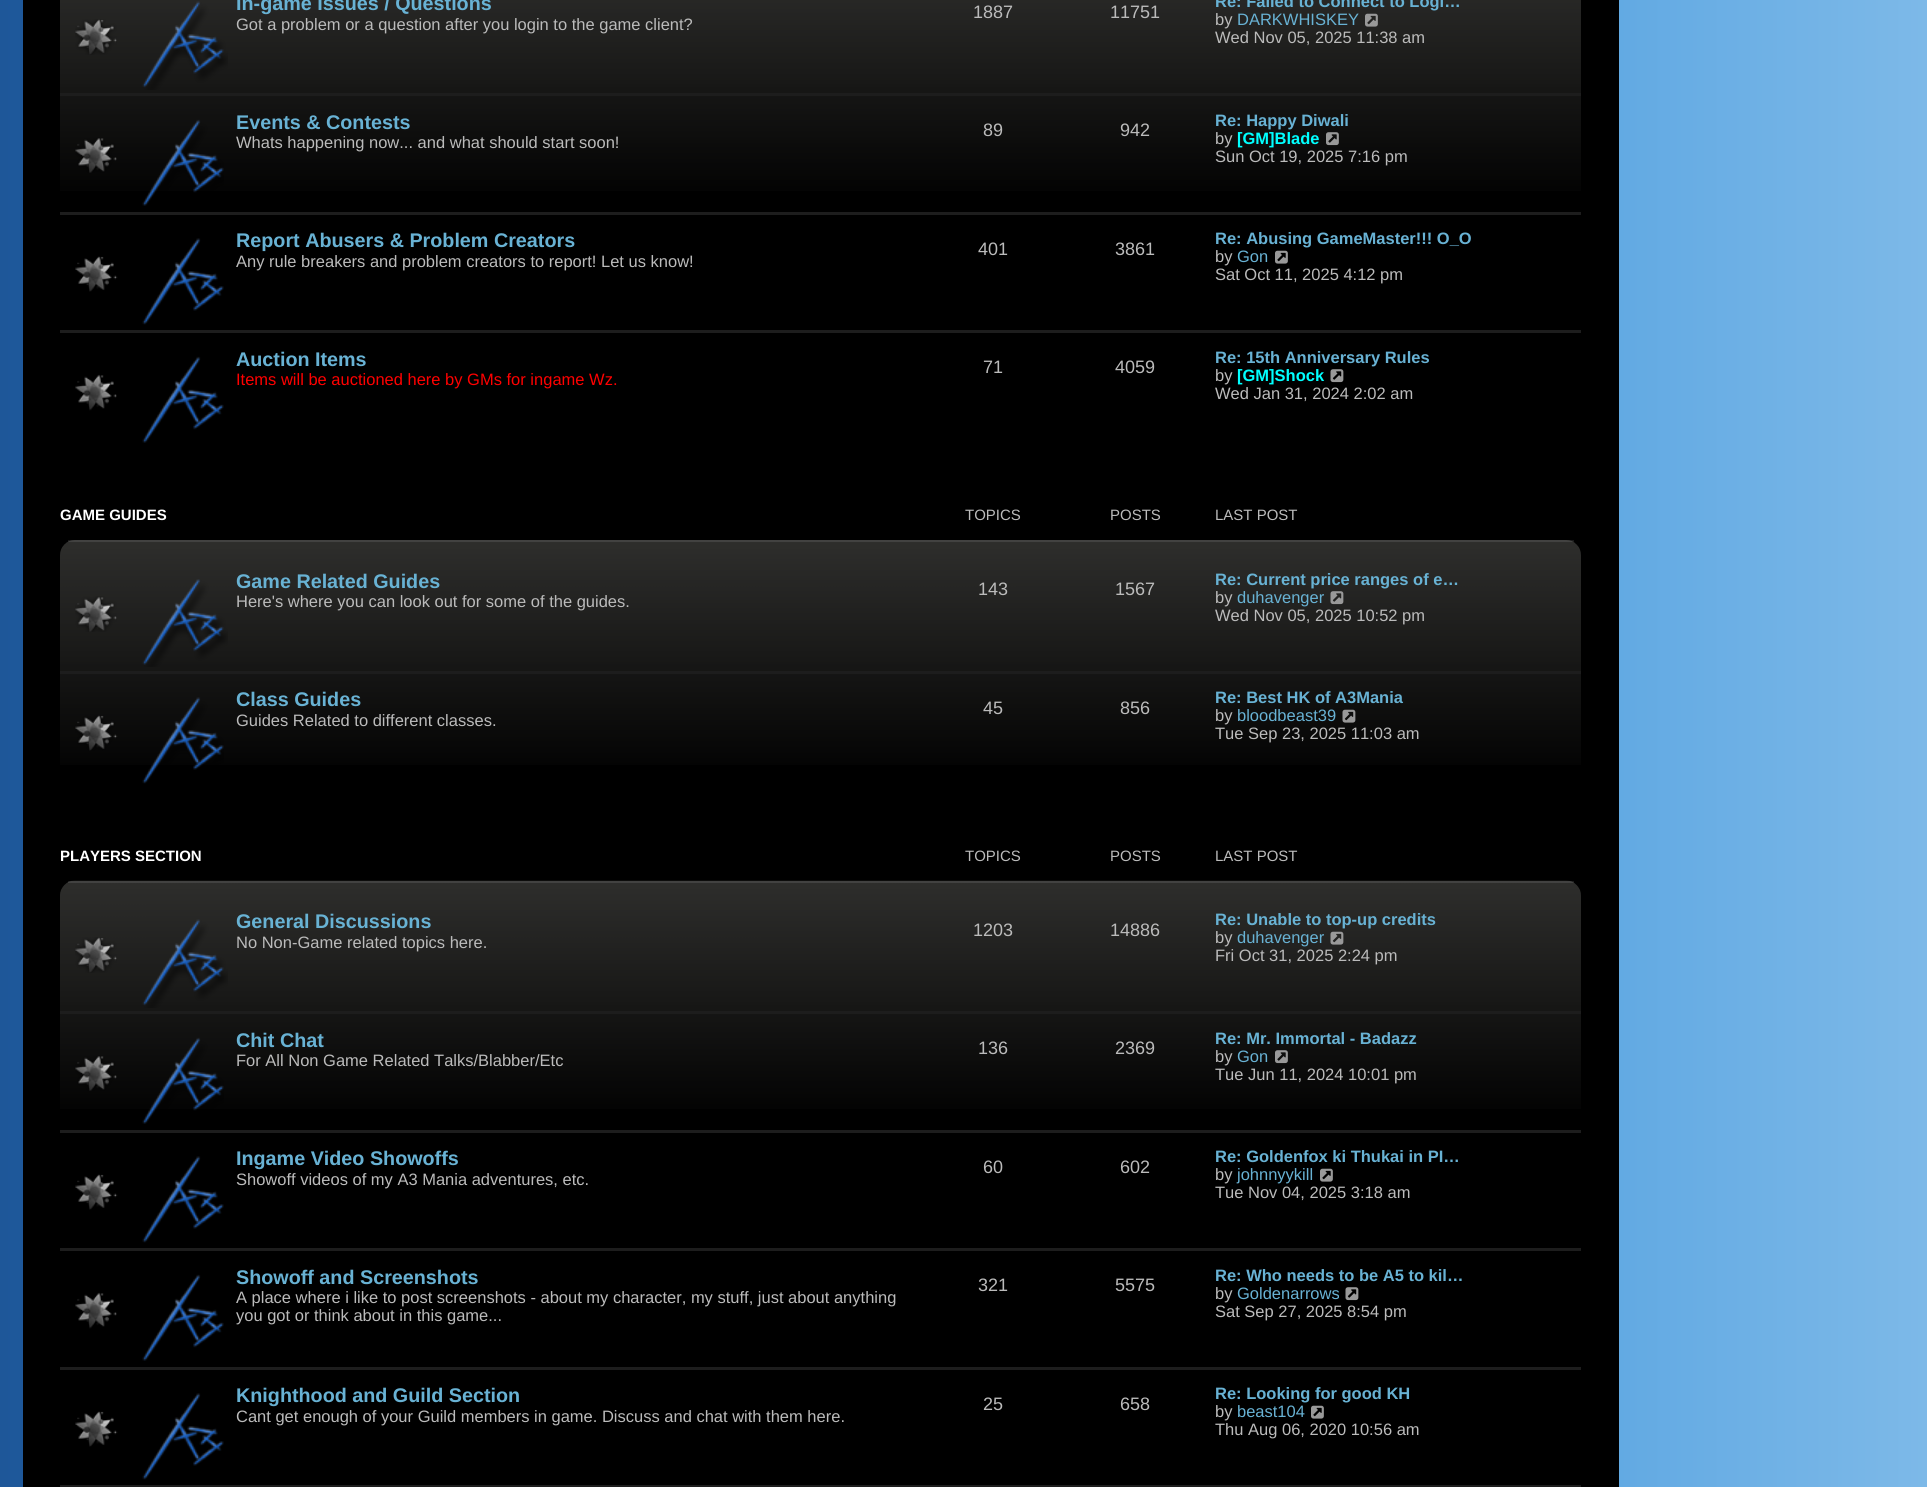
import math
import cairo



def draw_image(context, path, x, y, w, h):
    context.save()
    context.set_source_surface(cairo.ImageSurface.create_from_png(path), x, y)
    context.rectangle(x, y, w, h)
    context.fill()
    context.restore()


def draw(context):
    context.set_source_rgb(1, 1, 1)
    context.paint()
    gradient = cairo.LinearGradient(0, 751, 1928, 751)
    gradient.add_color_stop_rgba(0, 30 / 255, 87 / 255, 153 / 255, 1)
    gradient.add_color_stop_rgba(0.5, 41 / 255, 137 / 255, 216 / 255, 1)
    gradient.add_color_stop_rgba(1, 125 / 255, 185 / 255, 232 / 255, 1)
    context.set_source(gradient)
    context.rectangle(0, 0, 1927, 1487)
    context.fill()
    context.set_source_rgb(0, 0, 0)
    context.rectangle(23, 0, 1596, 1487)
    context.fill()
    draw_image(context, "images/1.png", 60, 0, 1521, 191)
    context.set_source_rgb(29 / 255, 29 / 255, 29 / 255)
    context.rectangle(60, 93, 1521, 3)
    context.fill()
    draw_image(context, "images/2.png", 75, 19, 42, 36)
    draw_image(context, "images/3.png", 142, 1, 86, 89)
    draw_image(context, "images/4.png", 1365, 13, 13, 14)
    context.rectangle(60, 212, 1521, 3)
    context.fill()
    draw_image(context, "images/5.png", 75, 138, 42, 35)
    draw_image(context, "images/6.png", 142, 119, 82, 87)
    draw_image(context, "images/7.png", 1326, 132, 13, 14)
    context.rectangle(60, 330, 1521, 3)
    context.fill()
    draw_image(context, "images/8.png", 75, 256, 43, 36)
    draw_image(context, "images/9.png", 142, 238, 82, 87)
    draw_image(context, "images/10.png", 1275, 250, 13, 14)
    draw_image(context, "images/11.png", 75, 374, 42, 37)
    draw_image(context, "images/12.png", 142, 356, 82, 87)
    draw_image(context, "images/13.png", 1330, 369, 14, 14)
    draw_image(context, "images/14.png", 60, 540, 1521, 225)
    context.set_source_rgba(1, 1, 1, 0.1)
    context.rectangle(68, 540, 1506, 2)
    context.fill()
    context.set_source_rgb(29 / 255, 29 / 255, 29 / 255)
    context.rectangle(60, 671, 1521, 3)
    context.fill()
    draw_image(context, "images/15.png", 75, 596, 42, 36)
    draw_image(context, "images/16.png", 142, 579, 86, 88)
    draw_image(context, "images/17.png", 1330, 591, 14, 14)
    draw_image(context, "images/18.png", 75, 715, 43, 36)
    draw_image(context, "images/19.png", 142, 697, 82, 87)
    draw_image(context, "images/20.png", 1342, 709, 14, 14)
    draw_image(context, "images/21.png", 60, 880, 1521, 229)
    context.set_source_rgba(1, 1, 1, 0.1)
    context.rectangle(68, 881, 1506, 2)
    context.fill()
    context.set_source_rgb(29 / 255, 29 / 255, 29 / 255)
    context.rectangle(60, 1011, 1521, 3)
    context.fill()
    draw_image(context, "images/22.png", 75, 937, 42, 36)
    draw_image(context, "images/23.png", 142, 919, 86, 89)
    draw_image(context, "images/24.png", 1330, 931, 14, 14)
    context.rectangle(60, 1130, 1521, 3)
    context.fill()
    draw_image(context, "images/5.png", 75, 1056, 42, 35)
    draw_image(context, "images/6.png", 142, 1037, 82, 87)
    draw_image(context, "images/7.png", 1275, 1050, 13, 14)
    context.rectangle(60, 1248, 1521, 3)
    context.fill()
    draw_image(context, "images/25.png", 75, 1174, 43, 36)
    draw_image(context, "images/9.png", 142, 1156, 82, 87)
    draw_image(context, "images/10.png", 1320, 1168, 13, 14)
    context.rectangle(60, 1367, 1521, 3)
    context.fill()
    draw_image(context, "images/26.png", 75, 1292, 42, 37)
    draw_image(context, "images/12.png", 142, 1274, 82, 87)
    draw_image(context, "images/13.png", 1345, 1287, 14, 14)
    context.rectangle(60, 1485, 1521, 2)
    context.fill()
    draw_image(context, "images/25.png", 75, 1411, 43, 36)
    draw_image(context, "images/9.png", 142, 1393, 82, 87)
    draw_image(context, "images/10.png", 1311, 1405, 13, 14)
    context.select_font_face("Liberation Sans", cairo.FontSlant.NORMAL, cairo.FontWeight.BOLD)
    context.set_font_size(19.75)
    context.set_source_rgb(104 / 255, 178 / 255, 212 / 255)
    context.move_to(236, 10)
    context.show_text("In-game Issues / Questions")
    context.select_font_face("Liberation Sans")
    context.set_font_size(16.5)
    context.set_source_rgb(187 / 255, 187 / 255, 187 / 255)
    context.move_to(236, 30)
    context.show_text("Got a problem or a question after you login to the game client?")
    context.set_font_size(18)
    context.move_to(973, 18)
    context.show_text("1887")
    context.move_to(1110, 18)
    context.show_text("11751")
    context.select_font_face("Liberation Sans", cairo.FontSlant.NORMAL, cairo.FontWeight.BOLD)
    context.set_font_size(16.5)
    context.set_source_rgb(104 / 255, 178 / 255, 212 / 255)
    context.move_to(1215, 7)
    context.show_text("Re: Failed to Connect to Logi…")
    context.select_font_face("Liberation Sans")
    context.set_source_rgb(187 / 255, 187 / 255, 187 / 255)
    context.move_to(1215, 25)
    context.show_text("by")
    context.set_source_rgb(104 / 255, 178 / 255, 212 / 255)
    context.move_to(1237, 25)
    context.show_text("DARKWHISKEY")
    context.set_source_rgb(187 / 255, 187 / 255, 187 / 255)
    context.move_to(1215, 43)
    context.show_text("Wed Nov 05, 2025 11:38 am")
    context.select_font_face("Liberation Sans", cairo.FontSlant.NORMAL, cairo.FontWeight.BOLD)
    context.set_font_size(19.75)
    context.set_source_rgb(104 / 255, 178 / 255, 212 / 255)
    context.move_to(236, 129)
    context.show_text("Events & Contests")
    context.select_font_face("Liberation Sans")
    context.set_font_size(16.5)
    context.set_source_rgb(187 / 255, 187 / 255, 187 / 255)
    context.move_to(236, 148)
    context.show_text("Whats happening now... and what should start soon!")
    context.set_font_size(18)
    context.move_to(983, 136)
    context.show_text("89")
    context.move_to(1120, 136)
    context.show_text("942")
    context.select_font_face("Liberation Sans", cairo.FontSlant.NORMAL, cairo.FontWeight.BOLD)
    context.set_font_size(16.5)
    context.set_source_rgb(104 / 255, 178 / 255, 212 / 255)
    context.move_to(1215, 126)
    context.show_text("Re: Happy Diwali")
    context.select_font_face("Liberation Sans")
    context.set_source_rgb(187 / 255, 187 / 255, 187 / 255)
    context.move_to(1215, 144)
    context.show_text("by")
    context.select_font_face("Liberation Sans", cairo.FontSlant.NORMAL, cairo.FontWeight.BOLD)
    context.set_source_rgb(0, 1, 1)
    context.move_to(1237, 144)
    context.show_text("[GM]Blade")
    context.select_font_face("Liberation Sans")
    context.set_source_rgb(187 / 255, 187 / 255, 187 / 255)
    context.move_to(1215, 162)
    context.show_text("Sun Oct 19, 2025 7:16 pm")
    context.select_font_face("Liberation Sans", cairo.FontSlant.NORMAL, cairo.FontWeight.BOLD)
    context.set_font_size(19.75)
    context.set_source_rgb(104 / 255, 178 / 255, 212 / 255)
    context.move_to(236, 247)
    context.show_text("Report Abusers & Problem Creators")
    context.select_font_face("Liberation Sans")
    context.set_font_size(16.5)
    context.set_source_rgb(187 / 255, 187 / 255, 187 / 255)
    context.move_to(236, 267)
    context.show_text("Any rule breakers and problem creators to report! Let us know!")
    context.set_font_size(18)
    context.move_to(978, 255)
    context.show_text("401")
    context.move_to(1115, 255)
    context.show_text("3861")
    context.select_font_face("Liberation Sans", cairo.FontSlant.NORMAL, cairo.FontWeight.BOLD)
    context.set_font_size(16.5)
    context.set_source_rgb(104 / 255, 178 / 255, 212 / 255)
    context.move_to(1215, 244)
    context.show_text("Re: Abusing GameMaster!!! O_O")
    context.select_font_face("Liberation Sans")
    context.set_source_rgb(187 / 255, 187 / 255, 187 / 255)
    context.move_to(1215, 262)
    context.show_text("by")
    context.set_source_rgb(104 / 255, 178 / 255, 212 / 255)
    context.move_to(1237, 262)
    context.show_text("Gon")
    context.set_source_rgb(187 / 255, 187 / 255, 187 / 255)
    context.move_to(1215, 280)
    context.show_text("Sat Oct 11, 2025 4:12 pm")
    context.select_font_face("Liberation Sans", cairo.FontSlant.NORMAL, cairo.FontWeight.BOLD)
    context.set_font_size(19.75)
    context.set_source_rgb(104 / 255, 178 / 255, 212 / 255)
    context.move_to(236, 366)
    context.show_text("Auction Items")
    context.select_font_face("Liberation Sans")
    context.set_font_size(16.5)
    context.set_source_rgb(1, 0, 0)
    context.move_to(236, 385)
    context.show_text("Items will be auctioned here by GMs for ingame Wz.")
    context.set_font_size(18)
    context.set_source_rgb(187 / 255, 187 / 255, 187 / 255)
    context.move_to(983, 373)
    context.show_text("71")
    context.move_to(1115, 373)
    context.show_text("4059")
    context.select_font_face("Liberation Sans", cairo.FontSlant.NORMAL, cairo.FontWeight.BOLD)
    context.set_font_size(16.5)
    context.set_source_rgb(104 / 255, 178 / 255, 212 / 255)
    context.move_to(1215, 363)
    context.show_text("Re: 15th Anniversary Rules")
    context.select_font_face("Liberation Sans")
    context.set_source_rgb(187 / 255, 187 / 255, 187 / 255)
    context.move_to(1215, 381)
    context.show_text("by")
    context.select_font_face("Liberation Sans", cairo.FontSlant.NORMAL, cairo.FontWeight.BOLD)
    context.set_source_rgb(0, 1, 1)
    context.move_to(1237, 381)
    context.show_text("[GM]Shock")
    context.select_font_face("Liberation Sans")
    context.set_source_rgb(187 / 255, 187 / 255, 187 / 255)
    context.move_to(1215, 399)
    context.show_text("Wed Jan 31, 2024 2:02 am")
    context.select_font_face("Liberation Sans", cairo.FontSlant.NORMAL, cairo.FontWeight.BOLD)
    context.set_font_size(15)
    context.set_source_rgb(1, 1, 1)
    context.move_to(60, 520)
    context.show_text("GAME GUIDES")
    context.select_font_face("Liberation Sans")
    context.set_source_rgb(187 / 255, 187 / 255, 187 / 255)
    context.move_to(965, 520)
    context.show_text("TOPICS")
    context.move_to(1110, 520)
    context.show_text("POSTS")
    context.move_to(1215, 520)
    context.show_text("LAST POST")
    context.select_font_face("Liberation Sans", cairo.FontSlant.NORMAL, cairo.FontWeight.BOLD)
    context.set_font_size(19.75)
    context.set_source_rgb(104 / 255, 178 / 255, 212 / 255)
    context.move_to(236, 588)
    context.show_text("Game Related Guides")
    context.select_font_face("Liberation Sans")
    context.set_font_size(16.5)
    context.set_source_rgb(187 / 255, 187 / 255, 187 / 255)
    context.move_to(236, 607)
    context.show_text("Here's where you can look out for some of the guides.")
    context.set_font_size(18)
    context.move_to(978, 595)
    context.show_text("143")
    context.move_to(1115, 595)
    context.show_text("1567")
    context.select_font_face("Liberation Sans", cairo.FontSlant.NORMAL, cairo.FontWeight.BOLD)
    context.set_font_size(16.5)
    context.set_source_rgb(104 / 255, 178 / 255, 212 / 255)
    context.move_to(1215, 585)
    context.show_text("Re: Current price ranges of e…")
    context.select_font_face("Liberation Sans")
    context.set_source_rgb(187 / 255, 187 / 255, 187 / 255)
    context.move_to(1215, 603)
    context.show_text("by")
    context.set_source_rgb(104 / 255, 178 / 255, 212 / 255)
    context.move_to(1237, 603)
    context.show_text("duhavenger")
    context.set_source_rgb(187 / 255, 187 / 255, 187 / 255)
    context.move_to(1215, 621)
    context.show_text("Wed Nov 05, 2025 10:52 pm")
    context.select_font_face("Liberation Sans", cairo.FontSlant.NORMAL, cairo.FontWeight.BOLD)
    context.set_font_size(19.75)
    context.set_source_rgb(104 / 255, 178 / 255, 212 / 255)
    context.move_to(236, 706)
    context.show_text("Class Guides")
    context.select_font_face("Liberation Sans")
    context.set_font_size(16.5)
    context.set_source_rgb(187 / 255, 187 / 255, 187 / 255)
    context.move_to(236, 726)
    context.show_text("Guides Related to different classes.")
    context.set_font_size(18)
    context.move_to(983, 714)
    context.show_text("45")
    context.move_to(1120, 714)
    context.show_text("856")
    context.select_font_face("Liberation Sans", cairo.FontSlant.NORMAL, cairo.FontWeight.BOLD)
    context.set_font_size(16.5)
    context.set_source_rgb(104 / 255, 178 / 255, 212 / 255)
    context.move_to(1215, 703)
    context.show_text("Re: Best HK of A3Mania")
    context.select_font_face("Liberation Sans")
    context.set_source_rgb(187 / 255, 187 / 255, 187 / 255)
    context.move_to(1215, 721)
    context.show_text("by")
    context.set_source_rgb(104 / 255, 178 / 255, 212 / 255)
    context.move_to(1237, 721)
    context.show_text("bloodbeast39")
    context.set_source_rgb(187 / 255, 187 / 255, 187 / 255)
    context.move_to(1215, 739)
    context.show_text("Tue Sep 23, 2025 11:03 am")
    context.select_font_face("Liberation Sans", cairo.FontSlant.NORMAL, cairo.FontWeight.BOLD)
    context.set_font_size(15)
    context.set_source_rgb(1, 1, 1)
    context.move_to(60, 861)
    context.show_text("PLAYERS SECTION")
    context.select_font_face("Liberation Sans")
    context.set_source_rgb(187 / 255, 187 / 255, 187 / 255)
    context.move_to(965, 861)
    context.show_text("TOPICS")
    context.move_to(1110, 861)
    context.show_text("POSTS")
    context.move_to(1215, 861)
    context.show_text("LAST POST")
    context.select_font_face("Liberation Sans", cairo.FontSlant.NORMAL, cairo.FontWeight.BOLD)
    context.set_font_size(19.75)
    context.set_source_rgb(104 / 255, 178 / 255, 212 / 255)
    context.move_to(236, 928)
    context.show_text("General Discussions")
    context.select_font_face("Liberation Sans")
    context.set_font_size(16.5)
    context.set_source_rgb(187 / 255, 187 / 255, 187 / 255)
    context.move_to(236, 948)
    context.show_text("No Non-Game related topics here.")
    context.set_font_size(18)
    context.move_to(973, 936)
    context.show_text("1203")
    context.move_to(1110, 936)
    context.show_text("14886")
    context.select_font_face("Liberation Sans", cairo.FontSlant.NORMAL, cairo.FontWeight.BOLD)
    context.set_font_size(16.5)
    context.set_source_rgb(104 / 255, 178 / 255, 212 / 255)
    context.move_to(1215, 925)
    context.show_text("Re: Unable to top-up credits")
    context.select_font_face("Liberation Sans")
    context.set_source_rgb(187 / 255, 187 / 255, 187 / 255)
    context.move_to(1215, 943)
    context.show_text("by")
    context.set_source_rgb(104 / 255, 178 / 255, 212 / 255)
    context.move_to(1237, 943)
    context.show_text("duhavenger")
    context.set_source_rgb(187 / 255, 187 / 255, 187 / 255)
    context.move_to(1215, 961)
    context.show_text("Fri Oct 31, 2025 2:24 pm")
    context.select_font_face("Liberation Sans", cairo.FontSlant.NORMAL, cairo.FontWeight.BOLD)
    context.set_font_size(19.75)
    context.set_source_rgb(104 / 255, 178 / 255, 212 / 255)
    context.move_to(236, 1047)
    context.show_text("Chit Chat")
    context.select_font_face("Liberation Sans")
    context.set_font_size(16.5)
    context.set_source_rgb(187 / 255, 187 / 255, 187 / 255)
    context.move_to(236, 1066)
    context.show_text("For All Non Game Related Talks/Blabber/Etc")
    context.set_font_size(18)
    context.move_to(978, 1054)
    context.show_text("136")
    context.move_to(1115, 1054)
    context.show_text("2369")
    context.select_font_face("Liberation Sans", cairo.FontSlant.NORMAL, cairo.FontWeight.BOLD)
    context.set_font_size(16.5)
    context.set_source_rgb(104 / 255, 178 / 255, 212 / 255)
    context.move_to(1215, 1044)
    context.show_text("Re: Mr. Immortal - Badazz")
    context.select_font_face("Liberation Sans")
    context.set_source_rgb(187 / 255, 187 / 255, 187 / 255)
    context.move_to(1215, 1062)
    context.show_text("by")
    context.set_source_rgb(104 / 255, 178 / 255, 212 / 255)
    context.move_to(1237, 1062)
    context.show_text("Gon")
    context.set_source_rgb(187 / 255, 187 / 255, 187 / 255)
    context.move_to(1215, 1080)
    context.show_text("Tue Jun 11, 2024 10:01 pm")
    context.select_font_face("Liberation Sans", cairo.FontSlant.NORMAL, cairo.FontWeight.BOLD)
    context.set_font_size(19.75)
    context.set_source_rgb(104 / 255, 178 / 255, 212 / 255)
    context.move_to(236, 1165)
    context.show_text("Ingame Video Showoffs")
    context.select_font_face("Liberation Sans")
    context.set_font_size(16.5)
    context.set_source_rgb(187 / 255, 187 / 255, 187 / 255)
    context.move_to(236, 1185)
    context.show_text("Showoff videos of my A3 Mania adventures, etc.")
    context.set_font_size(18)
    context.move_to(983, 1173)
    context.show_text("60")
    context.move_to(1120, 1173)
    context.show_text("602")
    context.select_font_face("Liberation Sans", cairo.FontSlant.NORMAL, cairo.FontWeight.BOLD)
    context.set_font_size(16.5)
    context.set_source_rgb(104 / 255, 178 / 255, 212 / 255)
    context.move_to(1215, 1162)
    context.show_text("Re: Goldenfox ki Thukai in PI…")
    context.select_font_face("Liberation Sans")
    context.set_source_rgb(187 / 255, 187 / 255, 187 / 255)
    context.move_to(1215, 1180)
    context.show_text("by")
    context.set_source_rgb(104 / 255, 178 / 255, 212 / 255)
    context.move_to(1237, 1180)
    context.show_text("johnnyykill")
    context.set_source_rgb(187 / 255, 187 / 255, 187 / 255)
    context.move_to(1215, 1198)
    context.show_text("Tue Nov 04, 2025 3:18 am")
    context.select_font_face("Liberation Sans", cairo.FontSlant.NORMAL, cairo.FontWeight.BOLD)
    context.set_font_size(19.75)
    context.set_source_rgb(104 / 255, 178 / 255, 212 / 255)
    context.move_to(236, 1284)
    context.show_text("Showoff and Screenshots")
    context.select_font_face("Liberation Sans")
    context.set_font_size(16.5)
    context.set_source_rgb(187 / 255, 187 / 255, 187 / 255)
    context.move_to(236, 1303)
    context.show_text("A place where i like to post screenshots - about my character, my stuff, just about anything")
    context.move_to(236, 1321)
    context.show_text("you got or think about in this game...")
    context.set_font_size(18)
    context.move_to(978, 1291)
    context.show_text("321")
    context.move_to(1115, 1291)
    context.show_text("5575")
    context.select_font_face("Liberation Sans", cairo.FontSlant.NORMAL, cairo.FontWeight.BOLD)
    context.set_font_size(16.5)
    context.set_source_rgb(104 / 255, 178 / 255, 212 / 255)
    context.move_to(1215, 1281)
    context.show_text("Re: Who needs to be A5 to kil…")
    context.select_font_face("Liberation Sans")
    context.set_source_rgb(187 / 255, 187 / 255, 187 / 255)
    context.move_to(1215, 1299)
    context.show_text("by")
    context.set_source_rgb(104 / 255, 178 / 255, 212 / 255)
    context.move_to(1237, 1299)
    context.show_text("Goldenarrows")
    context.set_source_rgb(187 / 255, 187 / 255, 187 / 255)
    context.move_to(1215, 1317)
    context.show_text("Sat Sep 27, 2025 8:54 pm")
    context.select_font_face("Liberation Sans", cairo.FontSlant.NORMAL, cairo.FontWeight.BOLD)
    context.set_font_size(19.75)
    context.set_source_rgb(104 / 255, 178 / 255, 212 / 255)
    context.move_to(236, 1402)
    context.show_text("Knighthood and Guild Section")
    context.select_font_face("Liberation Sans")
    context.set_font_size(16.5)
    context.set_source_rgb(187 / 255, 187 / 255, 187 / 255)
    context.move_to(236, 1422)
    context.show_text("Cant get enough of your Guild members in game. Discuss and chat with them here.")
    context.set_font_size(18)
    context.move_to(983, 1410)
    context.show_text("25")
    context.move_to(1120, 1410)
    context.show_text("658")
    context.select_font_face("Liberation Sans", cairo.FontSlant.NORMAL, cairo.FontWeight.BOLD)
    context.set_font_size(16.5)
    context.set_source_rgb(104 / 255, 178 / 255, 212 / 255)
    context.move_to(1215, 1399)
    context.show_text("Re: Looking for good KH")
    context.select_font_face("Liberation Sans")
    context.set_source_rgb(187 / 255, 187 / 255, 187 / 255)
    context.move_to(1215, 1417)
    context.show_text("by")
    context.set_source_rgb(104 / 255, 178 / 255, 212 / 255)
    context.move_to(1237, 1417)
    context.show_text("beast104")
    context.set_source_rgb(187 / 255, 187 / 255, 187 / 255)
    context.move_to(1215, 1435)
    context.show_text("Thu Aug 06, 2020 10:56 am")


surface = cairo.ImageSurface(cairo.Format.RGB24, 1927, 1487)
context = cairo.Context(surface)
options = cairo.FontOptions()
options.set_hint_metrics(cairo.HintMetrics.OFF)
options.set_hint_style(cairo.HintStyle.NONE)
context.set_font_options(options)
context.set_miter_limit(4)
draw(context)
surface.write_to_png("out.png")
